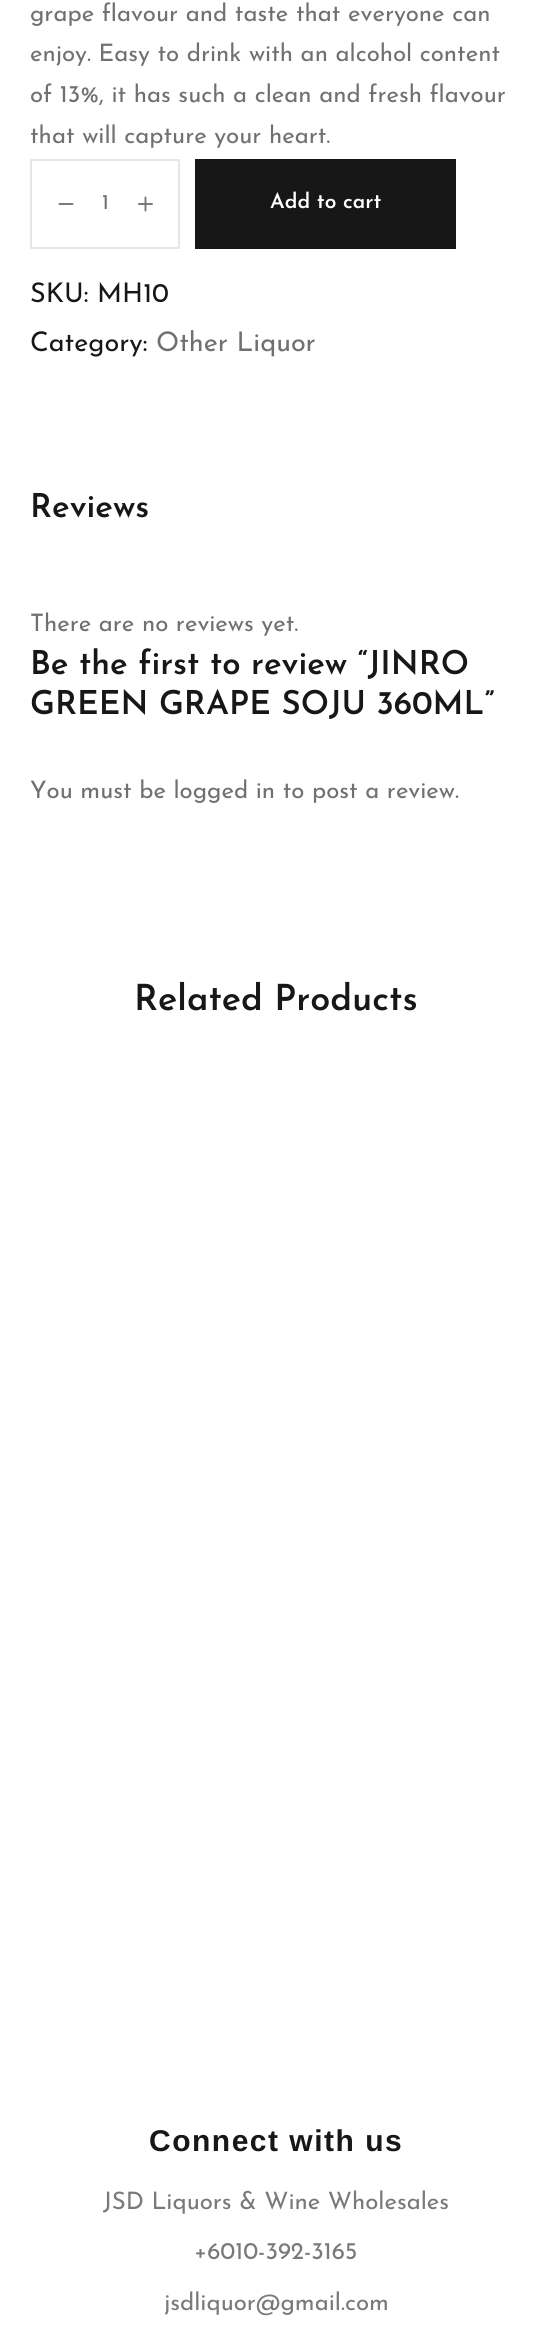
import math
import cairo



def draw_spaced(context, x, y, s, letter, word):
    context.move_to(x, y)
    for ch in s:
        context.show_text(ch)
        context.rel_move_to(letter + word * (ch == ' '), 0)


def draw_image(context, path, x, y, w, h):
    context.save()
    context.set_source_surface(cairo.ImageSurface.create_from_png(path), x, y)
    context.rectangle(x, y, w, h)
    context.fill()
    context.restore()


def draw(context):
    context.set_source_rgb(1, 1, 1)
    context.paint()
    context.rectangle(31, 160, 148, 88)
    context.set_source_rgb(230 / 255, 230 / 255, 230 / 255)
    context.stroke()
    draw_image(context, "images/1.png", 58, 203, 16, 2)
    draw_image(context, "images/2.png", 138, 196, 15, 16)
    context.set_source_rgb(23 / 255, 23 / 255, 23 / 255)
    context.rectangle(195, 159, 261, 90)
    context.fill()
    context.select_font_face("Josefin Sans")
    context.set_font_size(24)
    context.set_source_rgb(112 / 255, 112 / 255, 112 / 255)
    context.move_to(30, 21)
    context.show_text("grape flavour and taste that everyone can")
    context.move_to(30, 61)
    context.show_text("enjoy. Easy to drink with an alcohol content")
    context.move_to(30, 102)
    context.show_text("of 13%, it has such a clean and fresh flavour")
    context.move_to(30, 143)
    context.show_text("that will capture your heart.")
    context.set_font_size(21)
    context.move_to(102, 209)
    context.show_text("1")
    context.select_font_face("Josefin Sans SemiBold")
    context.set_source_rgb(1, 1, 1)
    context.move_to(270, 208)
    context.show_text("Add to cart")
    context.select_font_face("Josefin Sans")
    context.set_font_size(27)
    context.set_source_rgb(23 / 255, 23 / 255, 23 / 255)
    context.move_to(30, 302)
    context.show_text("SKU: MH10")
    context.move_to(30, 351)
    context.show_text("Category:")
    context.set_source_rgb(112 / 255, 112 / 255, 112 / 255)
    context.move_to(156, 351)
    context.show_text("Other Liquor")
    context.select_font_face("Josefin Sans SemiBold")
    context.set_font_size(33)
    context.set_source_rgb(23 / 255, 23 / 255, 23 / 255)
    context.move_to(30, 517)
    context.show_text("Reviews")
    context.select_font_face("Josefin Sans")
    context.set_font_size(24)
    context.set_source_rgb(112 / 255, 112 / 255, 112 / 255)
    context.move_to(30, 631)
    context.show_text("There are no reviews yet.")
    context.select_font_face("Josefin Sans SemiBold")
    context.set_font_size(33)
    context.set_source_rgb(23 / 255, 23 / 255, 23 / 255)
    context.move_to(30, 674)
    context.show_text("Be the first to review “JINRO")
    context.move_to(30, 714)
    context.show_text("GREEN GRAPE SOJU 360ML”")
    context.select_font_face("Josefin Sans")
    context.set_font_size(24)
    context.set_source_rgb(112 / 255, 112 / 255, 112 / 255)
    context.move_to(30, 798)
    context.show_text("You must be logged in to post a review.")
    context.select_font_face("Josefin Sans SemiBold")
    context.set_font_size(36)
    context.set_source_rgb(23 / 255, 23 / 255, 23 / 255)
    context.move_to(134, 1010)
    context.show_text("Related Products")
    context.select_font_face("Liberation Sans", cairo.FontSlant.NORMAL, cairo.FontWeight.BOLD)
    context.set_font_size(30)
    draw_spaced(context, 149, 2151, "Connect with us", 1.5, 0)
    context.select_font_face("Josefin Sans")
    context.set_font_size(24)
    context.set_source_rgb(121 / 255, 121 / 255, 121 / 255)
    context.move_to(103, 2209)
    context.show_text("JSD Liquors & Wine Wholesales")
    context.move_to(194, 2259)
    context.show_text("+6010-392-3165")
    context.move_to(164, 2310)
    context.show_text("jsdliquor@gmail.com")


surface = cairo.ImageSurface(cairo.Format.RGB24, 551, 2338)
context = cairo.Context(surface)
options = cairo.FontOptions()
options.set_hint_metrics(cairo.HintMetrics.OFF)
options.set_hint_style(cairo.HintStyle.NONE)
context.set_font_options(options)
context.set_miter_limit(4)
draw(context)
surface.write_to_png("out.png")
